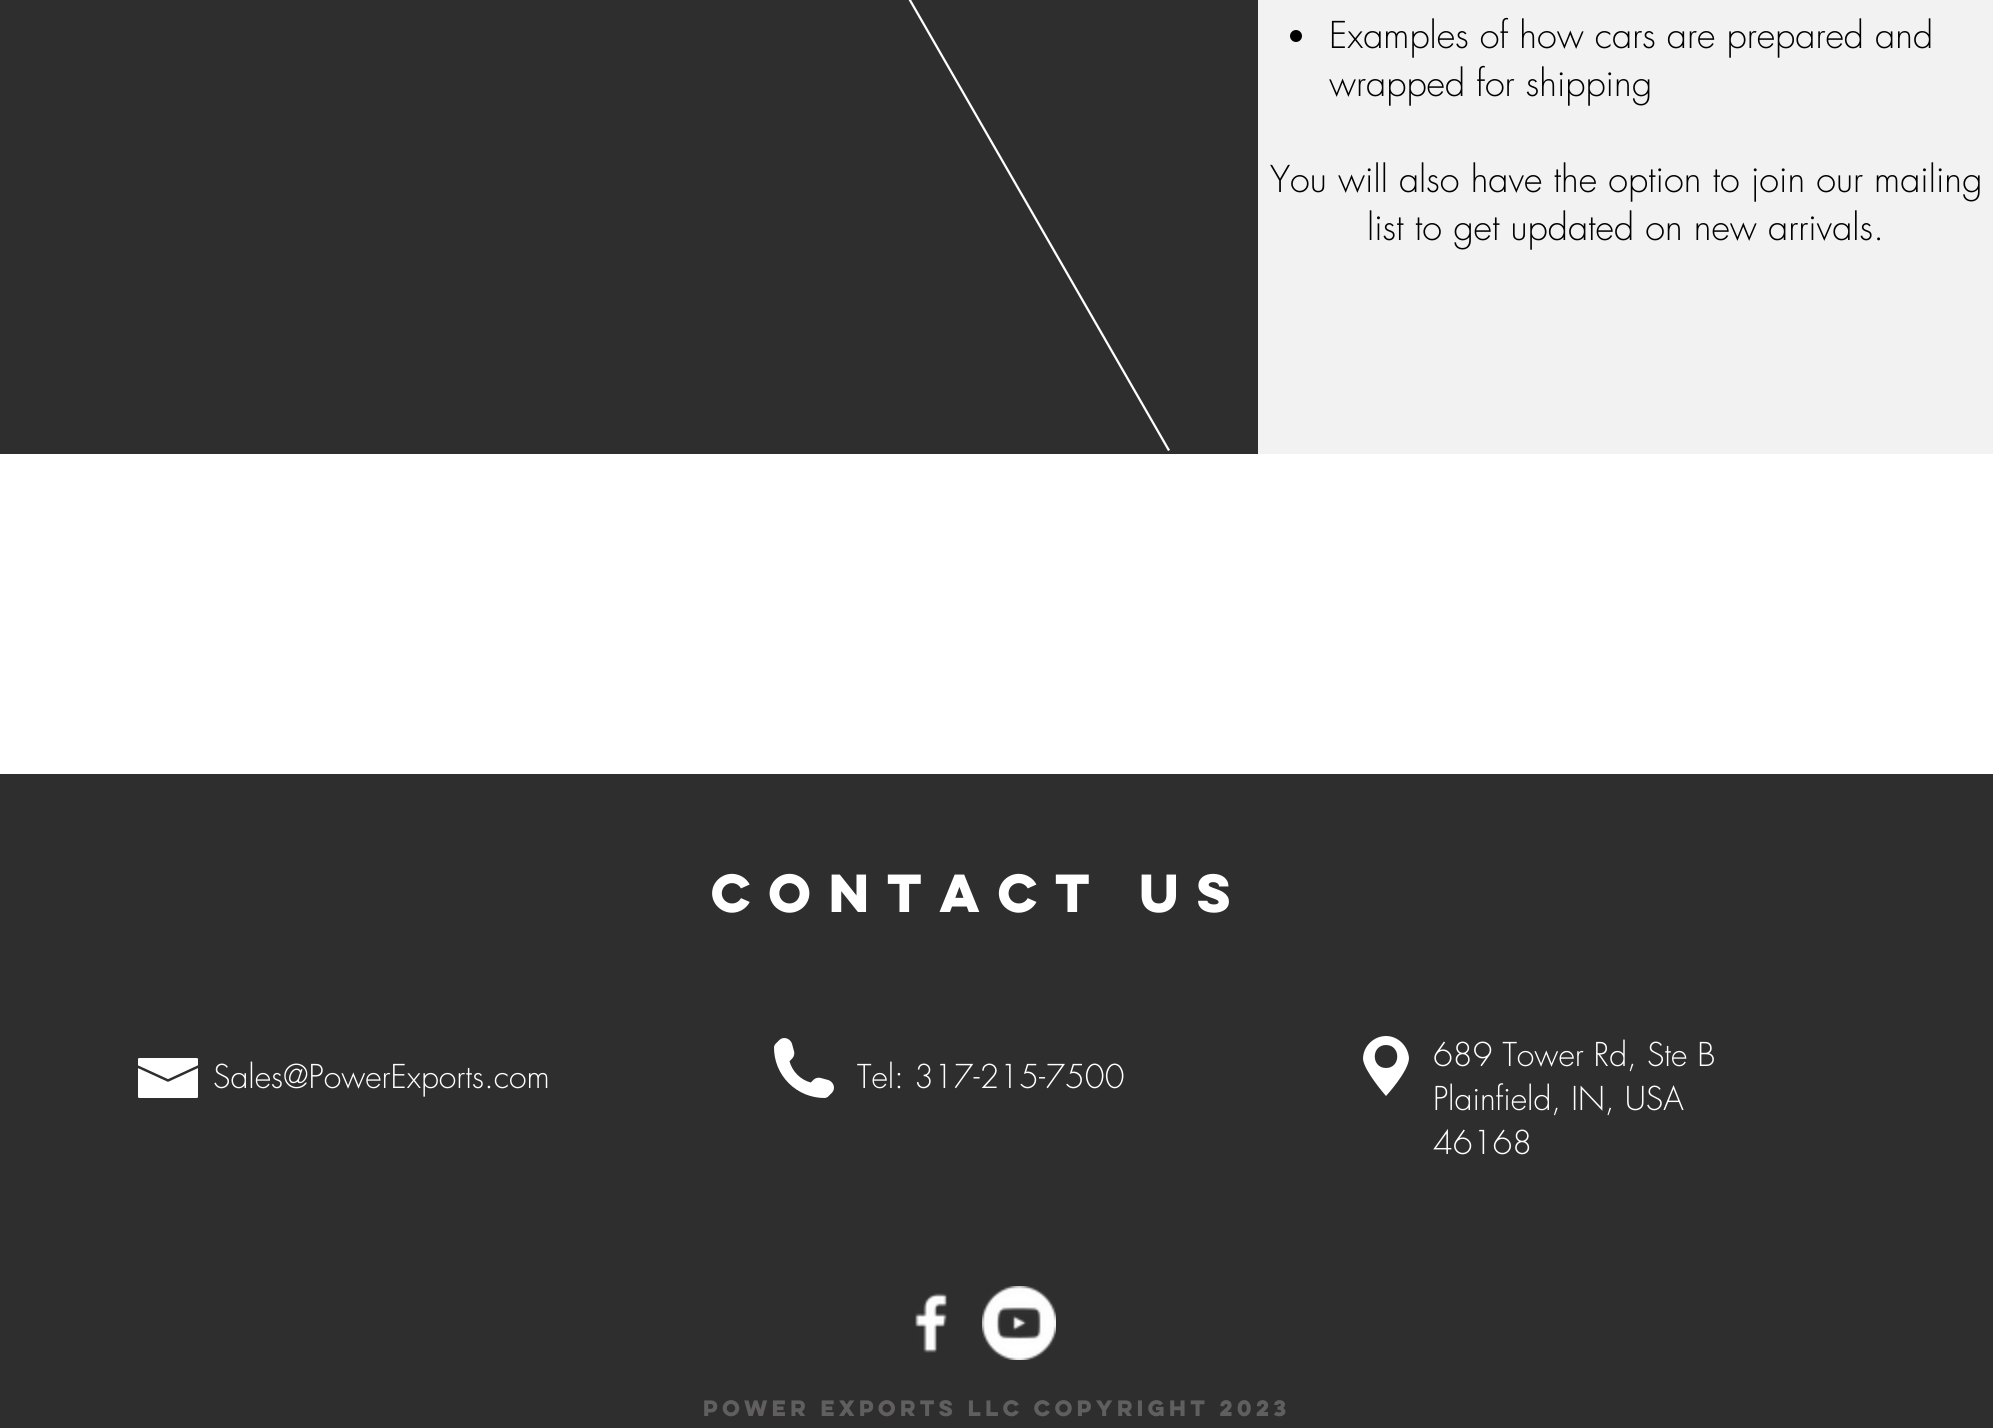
import math
import cairo



def draw_spaced(context, x, y, s, letter, word):
    context.move_to(x, y)
    for ch in s:
        context.show_text(ch)
        context.rel_move_to(letter + word * (ch == ' '), 0)


def draw_image(context, path, x, y, w, h):
    context.save()
    context.set_source_surface(cairo.ImageSurface.create_from_png(path), x, y)
    context.rectangle(x, y, w, h)
    context.fill()
    context.restore()


def draw(context):
    context.set_source_rgb(1, 1, 1)
    context.paint()
    context.set_source_rgb(47 / 255, 46 / 255, 46 / 255)
    context.rectangle(0, 0, 1258, 454)
    context.fill()
    context.set_source_rgb(1, 1, 1)
    context.new_path()
    context.move_to(363, -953)
    context.line_to(1170, 450)
    context.line_to(1168, 451)
    context.line_to(361, -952)
    context.close_path()
    context.fill()
    context.set_source_rgb(242 / 255, 242 / 255, 242 / 255)
    context.rectangle(1258, 0, 735, 454)
    context.fill()
    context.set_source_rgb(0, 0, 0)
    context.arc(1296, 36, 6, 0, 2 * math.pi)
    context.fill()
    context.set_source_rgb(47 / 255, 46 / 255, 46 / 255)
    context.rectangle(0, 774, 1993, 654)
    context.fill()
    draw_image(context, "images/1.png", 138, 1058, 60, 40)
    draw_image(context, "images/2.png", 774, 1038, 60, 60)
    context.set_source_rgb(1, 1, 1)
    context.new_path()
    context.move_to(1386, 1036)
    context.curve_to(1374, 1036, 1363, 1046, 1363, 1059)
    context.curve_to(1364, 1071, 1386, 1096, 1386, 1096)
    context.curve_to(1386, 1096, 1409, 1071, 1409, 1058)
    context.curve_to(1408, 1046, 1398, 1036, 1386, 1036)
    context.close_path()
    context.move_to(1386, 1068)
    context.curve_to(1371, 1068, 1371, 1045, 1386, 1045)
    context.curve_to(1401, 1045, 1401, 1068, 1386, 1068)
    context.close_path()
    context.fill()
    draw_image(context, "images/3.png", 915, 1293, 32, 60)
    draw_image(context, "images/4.png", 982, 1286, 74, 74)
    context.select_font_face("futura Light")
    context.set_font_size(36)
    context.set_source_rgb(0, 0, 0)
    context.move_to(1329, 48)
    context.show_text("Examples of how cars are prepared and")
    context.move_to(1329, 96)
    context.show_text("wrapped for shipping")
    context.move_to(1270, 192)
    context.show_text("You will also have the option to join our mailing")
    context.move_to(1367, 240)
    context.show_text("list to get updated on new arrivals.")
    context.select_font_face("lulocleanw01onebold", cairo.FontSlant.NORMAL, cairo.FontWeight.BOLD)
    context.set_font_size(48)
    context.set_source_rgb(1, 1, 1)
    draw_spaced(context, 711, 912, "CONTACT US", 7.25, 0)
    context.select_font_face("futura Light")
    context.set_font_size(32)
    context.move_to(213, 1088)
    context.show_text("Sales@PowerExports.com")
    context.move_to(857, 1088)
    context.show_text("Tel: 317-215-7500")
    context.move_to(1433, 1066)
    context.show_text("689 Tower Rd, Ste B")
    context.move_to(1433, 1110)
    context.show_text("Plainfield, IN, USA")
    context.move_to(1433, 1154)
    context.show_text("46168")
    context.select_font_face("lulocleanw01onebold", cairo.FontSlant.NORMAL, cairo.FontWeight.BOLD)
    context.set_font_size(20)
    context.set_source_rgb(96 / 255, 94 / 255, 94 / 255)
    context.move_to(703, 1416)
    context.show_text("POWER EXPORTS LLC COPYRIGHT 2023")


surface = cairo.ImageSurface(cairo.Format.RGB24, 1993, 1428)
context = cairo.Context(surface)
options = cairo.FontOptions()
options.set_hint_metrics(cairo.HintMetrics.OFF)
options.set_hint_style(cairo.HintStyle.NONE)
context.set_font_options(options)
context.set_miter_limit(4)
draw(context)
surface.write_to_png("out.png")
